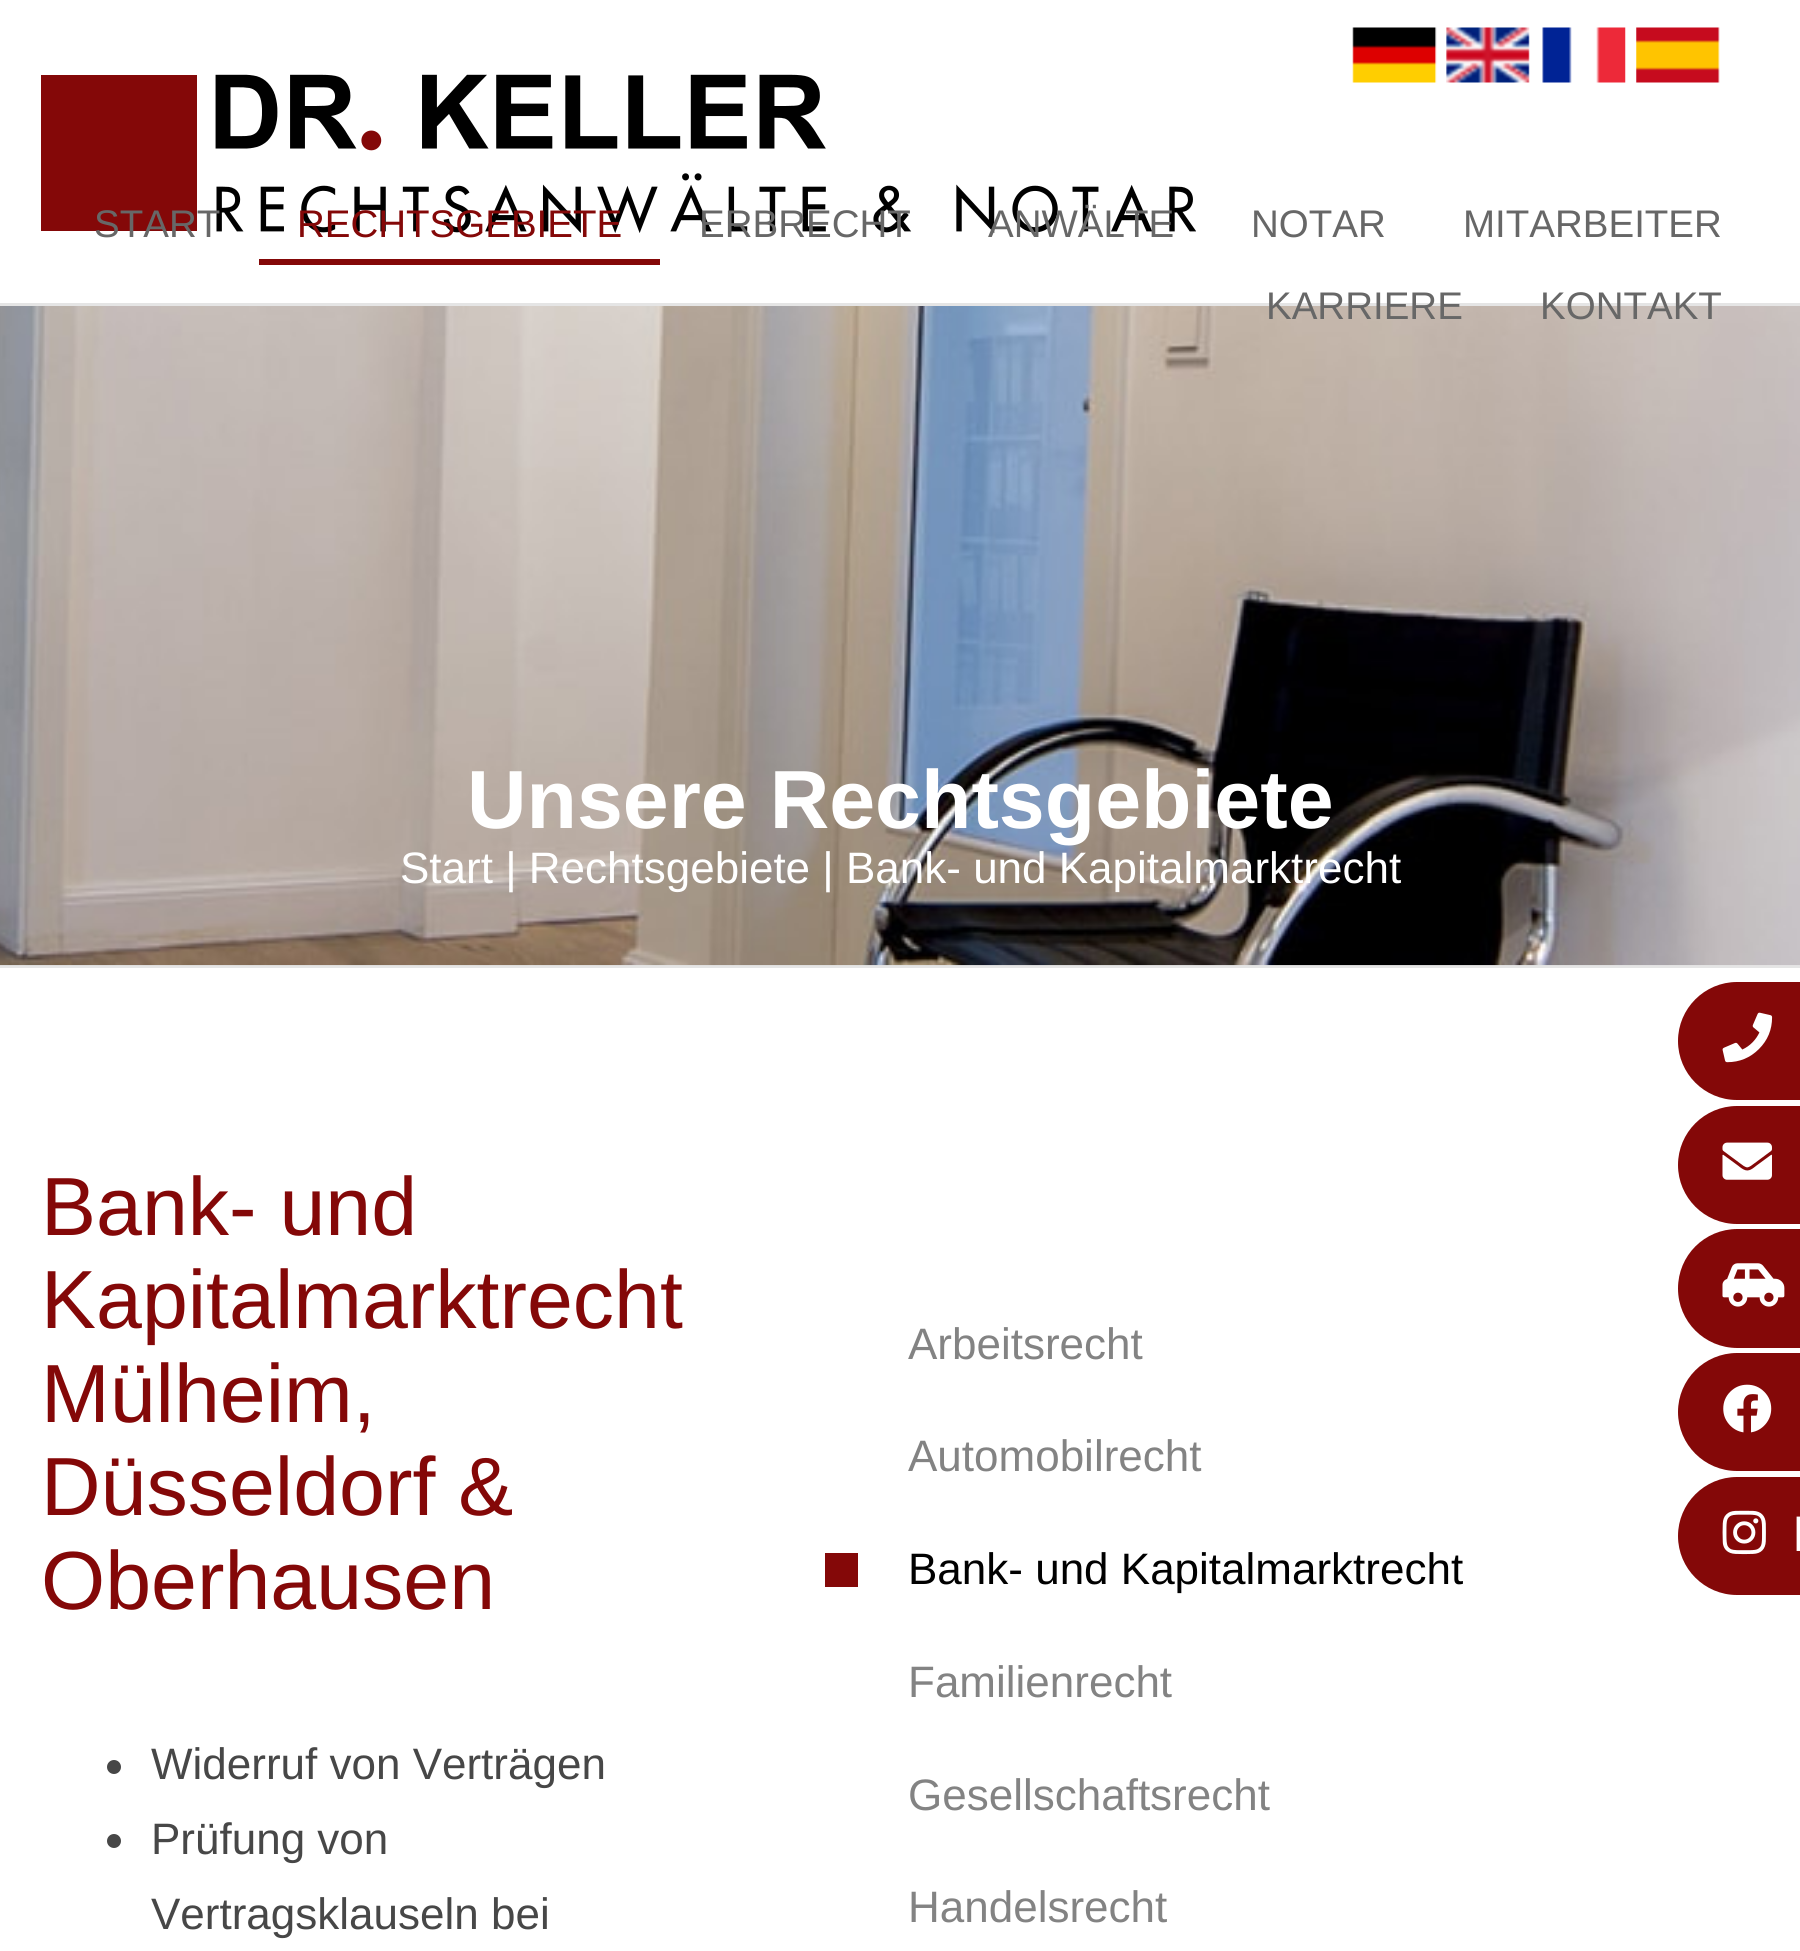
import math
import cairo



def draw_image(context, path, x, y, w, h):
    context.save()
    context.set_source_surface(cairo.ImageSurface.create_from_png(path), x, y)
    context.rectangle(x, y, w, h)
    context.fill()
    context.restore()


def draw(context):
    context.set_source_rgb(1, 1, 1)
    context.paint()
    context.set_source_rgb(229 / 255, 229 / 255, 229 / 255)
    context.rectangle(0, 303, 1800, 3)
    context.fill()
    draw_image(context, "images/1.png", 1352, 27, 85, 56)
    draw_image(context, "images/2.png", 1446, 27, 84, 56)
    draw_image(context, "images/3.png", 1542, 27, 84, 56)
    draw_image(context, "images/4.png", 1636, 27, 84, 56)
    draw_image(context, "images/5.png", 41, 74, 1155, 159)
    context.set_source_rgb(132 / 255, 8 / 255, 8 / 255)
    context.rectangle(259, 259, 401, 6)
    context.fill()
    context.set_source_rgb(229 / 255, 229 / 255, 229 / 255)
    context.rectangle(0, 965, 1800, 3)
    context.fill()
    draw_image(context, "images/6.png", 0, 306, 1800, 660)
    context.set_source_rgb(71 / 255, 71 / 255, 71 / 255)
    context.arc(114, 1767, 7, 0, 2 * math.pi)
    context.fill()
    context.arc(114, 1841, 7, 0, 2 * math.pi)
    context.fill()
    context.set_source_rgb(132 / 255, 8 / 255, 8 / 255)
    context.rectangle(825, 1553, 33, 34)
    context.fill()
    context.new_path()
    context.move_to(1737, 982)
    context.line_to(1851, 982)
    context.curve_to(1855.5, 982, 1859, 985.5, 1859, 990)
    context.line_to(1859, 1092)
    context.curve_to(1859, 1096.5, 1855.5, 1100, 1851, 1100)
    context.line_to(1737, 1100)
    context.curve_to(1704.5, 1100, 1678, 1073.5, 1678, 1041)
    context.curve_to(1678, 1008.5, 1704.5, 982, 1737, 982)
    context.close_path()
    context.fill()
    draw_image(context, "images/7.png", 1722, 1012, 51, 51)
    context.new_path()
    context.move_to(1737, 1106)
    context.line_to(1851, 1106)
    context.curve_to(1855.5, 1106, 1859, 1109.5, 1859, 1114)
    context.line_to(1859, 1216)
    context.curve_to(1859, 1220.5, 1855.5, 1224, 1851, 1224)
    context.line_to(1737, 1224)
    context.curve_to(1704.5, 1224, 1678, 1197.5, 1678, 1165)
    context.curve_to(1678, 1132.5, 1704.5, 1106, 1737, 1106)
    context.close_path()
    context.fill()
    draw_image(context, "images/8.png", 1722, 1142, 50, 38)
    context.new_path()
    context.move_to(1737.5, 1229)
    context.line_to(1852, 1229)
    context.curve_to(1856.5, 1229, 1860, 1232.5, 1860, 1237)
    context.line_to(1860, 1340)
    context.curve_to(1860, 1344.5, 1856.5, 1348, 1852, 1348)
    context.line_to(1737.5, 1348)
    context.curve_to(1704.5, 1348, 1678, 1321.5, 1678, 1288.5)
    context.curve_to(1678, 1255.5, 1704.5, 1229, 1737.5, 1229)
    context.close_path()
    context.fill()
    draw_image(context, "images/9.png", 1722, 1263, 63, 44)
    context.new_path()
    context.move_to(1737, 1353)
    context.line_to(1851, 1353)
    context.curve_to(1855.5, 1353, 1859, 1356.5, 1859, 1361)
    context.line_to(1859, 1463)
    context.curve_to(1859, 1467.5, 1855.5, 1471, 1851, 1471)
    context.line_to(1737, 1471)
    context.curve_to(1704.5, 1471, 1678, 1444.5, 1678, 1412)
    context.curve_to(1678, 1379.5, 1704.5, 1353, 1737, 1353)
    context.close_path()
    context.fill()
    draw_image(context, "images/10.png", 1723, 1384, 49, 49)
    context.new_path()
    context.move_to(1737, 1477)
    context.line_to(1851, 1477)
    context.curve_to(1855.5, 1477, 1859, 1480.5, 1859, 1485)
    context.line_to(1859, 1587)
    context.curve_to(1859, 1591.5, 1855.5, 1595, 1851, 1595)
    context.line_to(1737, 1595)
    context.curve_to(1704.5, 1595, 1678, 1568.5, 1678, 1536)
    context.curve_to(1678, 1503.5, 1704.5, 1477, 1737, 1477)
    context.close_path()
    context.fill()
    draw_image(context, "images/11.png", 1722, 1510, 44, 45)
    context.select_font_face("Liberation Sans")
    context.set_font_size(38.5)
    context.set_source_rgb(103 / 255, 103 / 255, 103 / 255)
    context.move_to(94, 237)
    context.show_text("START")
    context.set_source_rgb(132 / 255, 8 / 255, 8 / 255)
    context.move_to(297, 237)
    context.show_text("RECHTSGEBIETE")
    context.set_source_rgb(103 / 255, 103 / 255, 103 / 255)
    context.move_to(699, 237)
    context.show_text("ERBRECHT")
    context.move_to(988, 237)
    context.show_text("ANWÄLTE")
    context.move_to(1251, 237)
    context.show_text("NOTAR")
    context.move_to(1463, 237)
    context.show_text("MITARBEITER")
    context.move_to(1266, 319)
    context.show_text("KARRIERE")
    context.move_to(1540, 319)
    context.show_text("KONTAKT")
    context.select_font_face("Liberation Sans", cairo.FontSlant.NORMAL, cairo.FontWeight.BOLD)
    context.set_font_size(82.5)
    context.set_source_rgb(1, 1, 1)
    context.move_to(467, 828)
    context.show_text("Unsere Rechtsgebiete")
    context.select_font_face("Liberation Sans")
    context.set_font_size(44)
    context.move_to(400, 883)
    context.show_text("Start | Rechtsgebiete | Bank- und Kapitalmarktrecht")
    context.set_font_size(82.5)
    context.set_source_rgb(132 / 255, 8 / 255, 8 / 255)
    context.move_to(41, 1235)
    context.show_text("Bank- und")
    context.move_to(41, 1328)
    context.show_text("Kapitalmarktrecht")
    context.move_to(41, 1422)
    context.show_text("Mülheim,")
    context.move_to(41, 1515)
    context.show_text("Düsseldorf &")
    context.move_to(41, 1609)
    context.show_text("Oberhausen")
    context.set_font_size(44)
    context.set_source_rgb(71 / 255, 71 / 255, 71 / 255)
    context.move_to(151, 1779)
    context.show_text("Widerruf von Verträgen")
    context.move_to(151, 1854)
    context.show_text("Prüfung von")
    context.move_to(151, 1929)
    context.show_text("Vertragsklauseln bei")
    context.set_source_rgb(131 / 255, 131 / 255, 131 / 255)
    context.move_to(908, 1359)
    context.show_text("Arbeitsrecht")
    context.move_to(908, 1471)
    context.show_text("Automobilrecht")
    context.set_source_rgb(0, 0, 0)
    context.move_to(908, 1584)
    context.show_text("Bank- und Kapitalmarktrecht")
    context.set_source_rgb(131 / 255, 131 / 255, 131 / 255)
    context.move_to(908, 1697)
    context.show_text("Familienrecht")
    context.move_to(908, 1810)
    context.show_text("Gesellschaftsrecht")
    context.move_to(908, 1922)
    context.show_text("Handelsrecht")
    context.set_font_size(50)
    context.set_source_rgb(1, 1, 1)
    context.move_to(1792, 1551)
    context.show_text("I")


surface = cairo.ImageSurface(cairo.Format.RGB24, 1800, 1951)
context = cairo.Context(surface)
options = cairo.FontOptions()
options.set_hint_metrics(cairo.HintMetrics.OFF)
options.set_hint_style(cairo.HintStyle.NONE)
context.set_font_options(options)
context.set_miter_limit(4)
draw(context)
surface.write_to_png("out.png")
